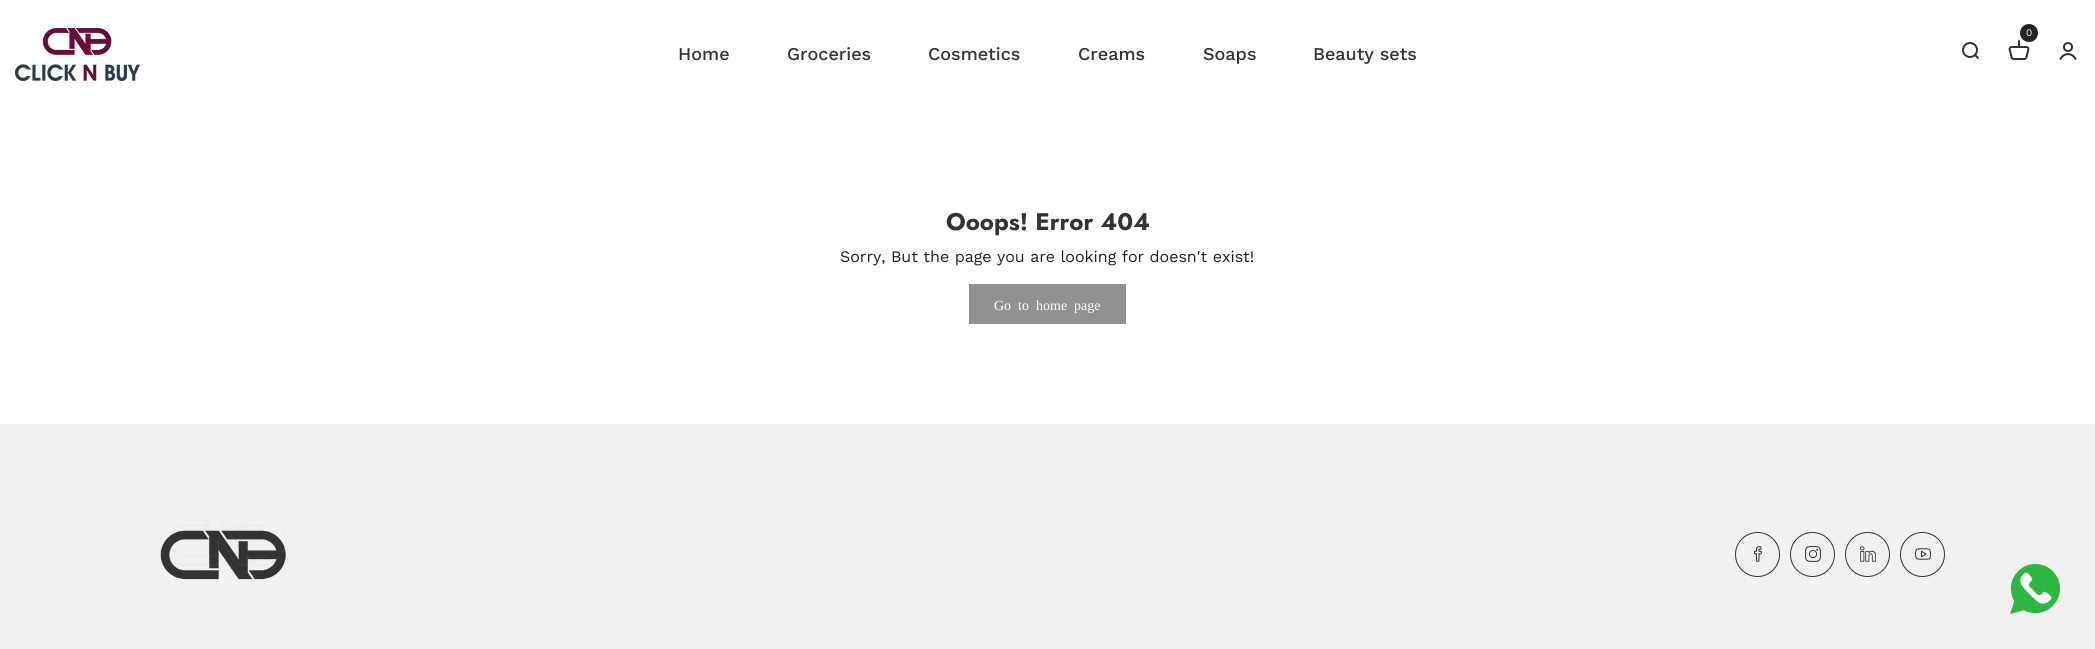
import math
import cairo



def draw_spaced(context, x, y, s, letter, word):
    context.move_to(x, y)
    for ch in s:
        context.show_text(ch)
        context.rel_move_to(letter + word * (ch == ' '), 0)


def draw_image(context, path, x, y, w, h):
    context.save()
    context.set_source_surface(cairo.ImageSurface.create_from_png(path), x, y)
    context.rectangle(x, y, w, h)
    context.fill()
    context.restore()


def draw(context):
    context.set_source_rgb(1, 1, 1)
    context.paint()
    draw_image(context, "images/1.png", 15, 28, 125, 53)
    draw_image(context, "images/2.png", 2008, 40, 22, 20)
    context.set_source_rgb(31 / 255, 34 / 255, 38 / 255)
    context.arc(2029, 33, 9, 0, 2 * math.pi)
    context.fill()
    draw_image(context, "images/3.png", 1962, 42, 17, 17)
    context.arc(2068, 47, 4, 0, 2 * math.pi)
    context.set_source_rgb(51 / 255, 51 / 255, 51 / 255)
    context.stroke()
    context.new_path()
    context.move_to(2060.5, 59)
    context.curve_to(2063.5, 52.5, 2072.5, 52.5, 2075.5, 59)
    context.set_line_cap(cairo.LineCap.ROUND)
    context.stroke()
    context.set_source_rgb(143 / 255, 145 / 255, 147 / 255)
    context.rectangle(969, 284, 157, 40)
    context.fill()
    context.set_source_rgb(241 / 255, 241 / 255, 241 / 255)
    context.rectangle(0, 424, 2095, 225)
    context.fill()
    draw_image(context, "images/4.png", 160, 516, 126, 64)
    context.arc(1757.5, 554.5, 22, 0, 2 * math.pi)
    context.set_source_rgb(51 / 255, 51 / 255, 51 / 255)
    context.set_line_width(1)
    context.set_line_cap(cairo.LineCap.BUTT)
    context.stroke()
    draw_image(context, "images/5.png", 1754, 546, 8, 16)
    context.arc(1812.5, 554.5, 22, 0, 2 * math.pi)
    context.stroke()
    draw_image(context, "images/6.png", 1805, 546, 16, 16)
    context.arc(1867.5, 554.5, 22, 0, 2 * math.pi)
    context.stroke()
    draw_image(context, "images/7.png", 1860, 546, 16, 16)
    context.arc(1922.5, 554.5, 22, 0, 2 * math.pi)
    context.stroke()
    draw_image(context, "images/8.png", 1915, 548, 16, 12)
    draw_image(context, "images/9.png", 2010, 564, 50, 50)
    context.select_font_face("Work Sans")
    context.set_font_size(10)
    context.set_source_rgb(1, 1, 1)
    context.move_to(2026, 36)
    context.show_text("0")
    context.select_font_face("Work Sans Medium")
    context.set_font_size(18)
    context.set_source_rgb(51 / 255, 51 / 255, 51 / 255)
    context.move_to(678, 60)
    context.show_text("Home")
    context.move_to(787, 60)
    context.show_text("Groceries")
    context.move_to(928, 60)
    context.show_text("Cosmetics")
    context.move_to(1078, 60)
    context.show_text("Creams")
    context.move_to(1203, 60)
    context.show_text("Soaps")
    context.move_to(1313, 60)
    context.show_text("Beauty sets")
    context.select_font_face("Jost", cairo.FontSlant.NORMAL, cairo.FontWeight.BOLD)
    context.set_font_size(24)
    context.move_to(946, 230)
    context.show_text("Ooops! Error 404")
    context.select_font_face("Work Sans")
    context.set_font_size(16)
    context.set_source_rgb(31 / 255, 34 / 255, 38 / 255)
    context.move_to(840, 262)
    context.show_text("Sorry, But the page you are looking for doesn't exist!")
    context.select_font_face("Liberation Serif")
    context.set_font_size(14)
    context.set_source_rgb(1, 1, 1)
    draw_spaced(context, 994, 310, "Go to home page", 0, 3.5)


surface = cairo.ImageSurface(cairo.Format.RGB24, 2095, 649)
context = cairo.Context(surface)
options = cairo.FontOptions()
options.set_hint_metrics(cairo.HintMetrics.OFF)
options.set_hint_style(cairo.HintStyle.NONE)
context.set_font_options(options)
context.set_miter_limit(4)
draw(context)
surface.write_to_png("out.png")
